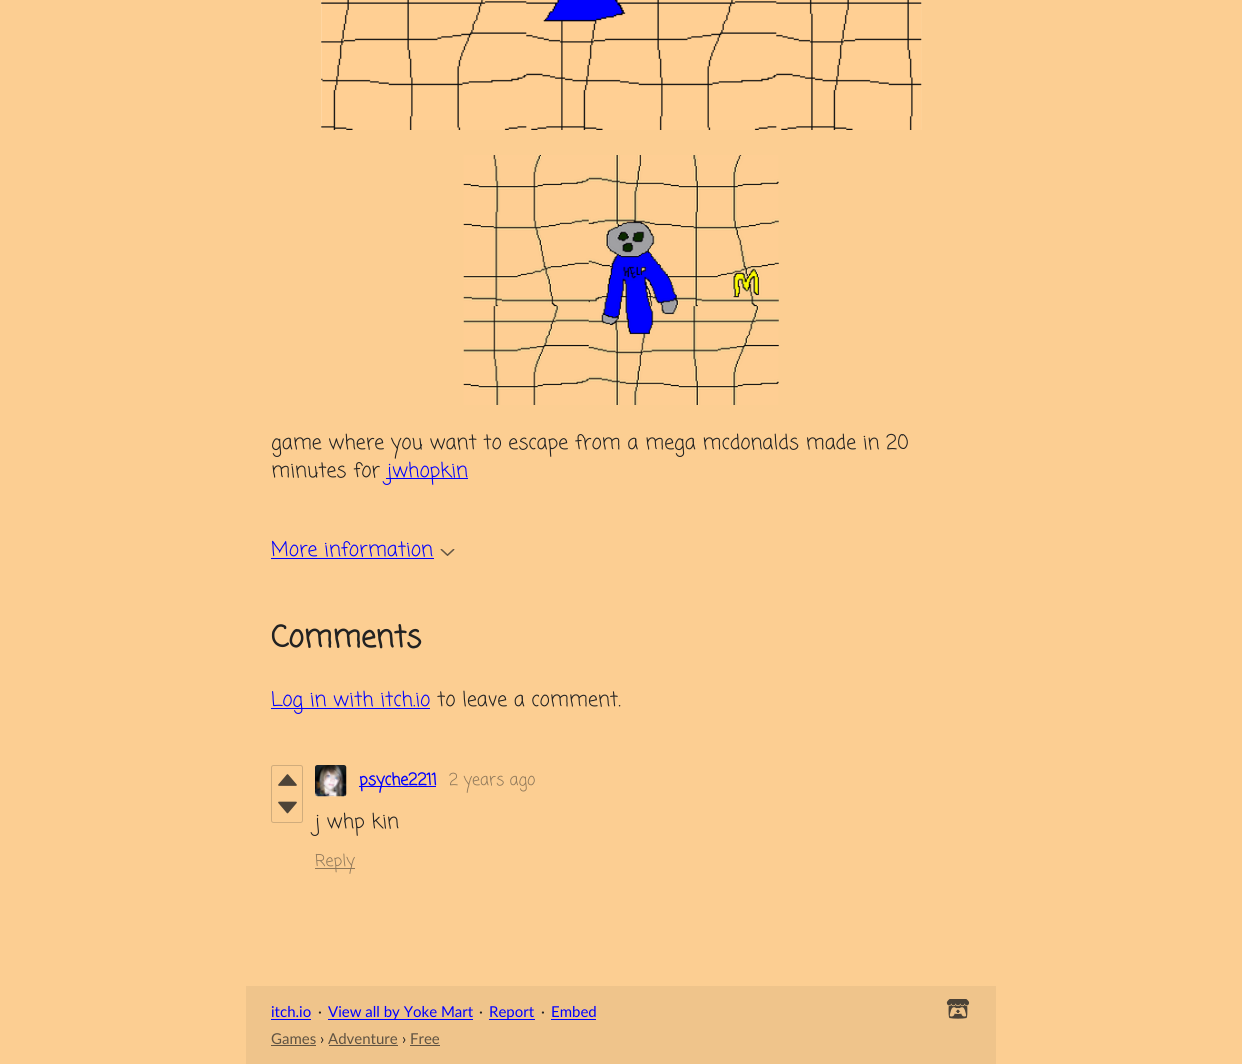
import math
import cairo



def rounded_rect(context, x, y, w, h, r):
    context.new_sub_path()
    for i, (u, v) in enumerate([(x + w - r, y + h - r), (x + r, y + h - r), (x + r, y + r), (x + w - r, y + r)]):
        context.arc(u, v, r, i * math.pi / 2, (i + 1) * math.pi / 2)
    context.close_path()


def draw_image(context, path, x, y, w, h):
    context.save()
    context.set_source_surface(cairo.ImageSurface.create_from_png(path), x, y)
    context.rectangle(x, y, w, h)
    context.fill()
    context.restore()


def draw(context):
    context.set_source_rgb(252 / 255, 206 / 255, 146 / 255)
    context.paint()
    draw_image(context, "images/1.png", 321, 0, 601, 130)
    draw_image(context, "images/2.png", 463, 155, 316, 250)
    context.set_source_rgb(0, 0, 1)
    context.rectangle(386, 478, 82, 1)
    context.fill()
    context.rectangle(271, 558, 163, 1)
    context.fill()
    draw_image(context, "images/3.png", 440, 549, 15, 7)
    context.rectangle(271, 708, 159, 1)
    context.fill()
    rounded_rect(context, 271.5, 765.5, 31, 57, 2)
    context.set_source_rgb(208 / 255, 172 / 255, 124 / 255)
    context.set_line_width(1)
    context.stroke()
    context.set_source_rgb(78 / 255, 68 / 255, 56 / 255)
    context.new_path()
    context.move_to(279, 785)
    context.line_to(287.5, 775)
    context.line_to(296, 785)
    context.close_path()
    context.fill_preserve()
    context.set_line_width(1.7)
    context.set_line_join(cairo.LineJoin.ROUND)
    context.stroke()
    context.new_path()
    context.move_to(279, 802.5)
    context.line_to(287.5, 812.5)
    context.line_to(296, 802.5)
    context.close_path()
    context.fill_preserve()
    context.stroke()
    draw_image(context, "images/4.png", 315, 765, 32, 32)
    rounded_rect(context, 315.5, 765.5, 30, 30, 2)
    context.set_source_rgba(0, 0, 0, 0.1)
    context.set_line_width(1)
    context.set_line_join(cairo.LineJoin.MITER)
    context.stroke()
    context.set_source_rgb(0, 0, 1)
    context.rectangle(359, 786, 77, 1)
    context.fill()
    context.set_source_rgb(143 / 255, 120 / 255, 90 / 255)
    context.rectangle(315, 868, 40, 1)
    context.fill()
    context.set_source_rgb(239 / 255, 196 / 255, 139 / 255)
    context.rectangle(246, 986, 750, 78)
    context.fill()
    context.set_source_rgb(0, 0, 1)
    context.rectangle(271, 1019, 40, 1)
    context.fill()
    context.rectangle(328, 1019, 145, 1)
    context.fill()
    context.rectangle(489, 1019, 46, 1)
    context.fill()
    context.rectangle(551, 1019, 45, 1)
    context.fill()
    draw_image(context, "images/5.png", 946, 999, 24, 20)
    context.set_source_rgb(96 / 255, 83 / 255, 66 / 255)
    context.rectangle(271, 1045, 45, 1)
    context.fill()
    context.rectangle(329, 1045, 69, 1)
    context.fill()
    context.rectangle(410, 1045, 30, 1)
    context.fill()
    context.select_font_face("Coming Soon")
    context.set_font_size(20)
    context.set_source_rgb(34 / 255, 34 / 255, 34 / 255)
    context.move_to(271, 449)
    context.show_text("game where you want to escape from a mega mcdonalds made in 20")
    context.move_to(271, 477)
    context.show_text("minutes for")
    context.set_source_rgb(0, 0, 1)
    context.move_to(387, 477)
    context.show_text("jwhopkin")
    context.move_to(271, 556)
    context.show_text("More information")
    context.select_font_face("Coming Soon", cairo.FontSlant.NORMAL, cairo.FontWeight.BOLD)
    context.set_font_size(30)
    context.set_source_rgb(34 / 255, 34 / 255, 34 / 255)
    context.move_to(271, 647)
    context.show_text("Comments")
    context.select_font_face("Coming Soon")
    context.set_font_size(20)
    context.set_source_rgb(0, 0, 1)
    context.move_to(271, 706)
    context.show_text("Log in with itch.io")
    context.set_source_rgb(34 / 255, 34 / 255, 34 / 255)
    context.move_to(437, 706)
    context.show_text("to leave a comment.")
    context.select_font_face("Coming Soon", cairo.FontSlant.NORMAL, cairo.FontWeight.BOLD)
    context.set_font_size(16.25)
    context.set_source_rgb(0, 0, 1)
    context.move_to(359, 785)
    context.show_text("psyche2211")
    context.select_font_face("Coming Soon")
    context.set_source_rgb(143 / 255, 120 / 255, 90 / 255)
    context.move_to(449, 785)
    context.show_text("2 years ago")
    context.set_font_size(20)
    context.set_source_rgb(34 / 255, 34 / 255, 34 / 255)
    context.move_to(315, 828)
    context.show_text("j whp kin")
    context.set_font_size(16.25)
    context.set_source_rgb(143 / 255, 120 / 255, 90 / 255)
    context.move_to(315, 866)
    context.show_text("Reply")
    context.select_font_face("Lato")
    context.set_font_size(15)
    context.set_source_rgb(0, 0, 1)
    context.move_to(271, 1017)
    context.show_text("itch.io")
    context.set_source_rgb(34 / 255, 34 / 255, 34 / 255)
    context.move_to(318, 1017)
    context.show_text("·")
    context.set_source_rgb(0, 0, 1)
    context.move_to(328, 1017)
    context.show_text("View all by Yoke Mart")
    context.set_source_rgb(34 / 255, 34 / 255, 34 / 255)
    context.move_to(479, 1017)
    context.show_text("·")
    context.set_source_rgb(0, 0, 1)
    context.move_to(489, 1017)
    context.show_text("Report")
    context.set_source_rgb(34 / 255, 34 / 255, 34 / 255)
    context.move_to(541, 1017)
    context.show_text("·")
    context.set_source_rgb(0, 0, 1)
    context.move_to(551, 1017)
    context.show_text("Embed")
    context.set_source_rgb(96 / 255, 83 / 255, 66 / 255)
    context.move_to(271, 1044)
    context.show_text("Games")
    context.set_source_rgb(34 / 255, 34 / 255, 34 / 255)
    context.move_to(320, 1044)
    context.show_text("›")
    context.set_source_rgb(96 / 255, 83 / 255, 66 / 255)
    context.move_to(328, 1044)
    context.show_text("Adventure")
    context.set_source_rgb(34 / 255, 34 / 255, 34 / 255)
    context.move_to(402, 1044)
    context.show_text("›")
    context.set_source_rgb(96 / 255, 83 / 255, 66 / 255)
    context.move_to(410, 1044)
    context.show_text("Free")


surface = cairo.ImageSurface(cairo.Format.RGB24, 1242, 1064)
context = cairo.Context(surface)
options = cairo.FontOptions()
options.set_hint_metrics(cairo.HintMetrics.OFF)
options.set_hint_style(cairo.HintStyle.NONE)
context.set_font_options(options)
context.set_miter_limit(4)
draw(context)
surface.write_to_png("out.png")
